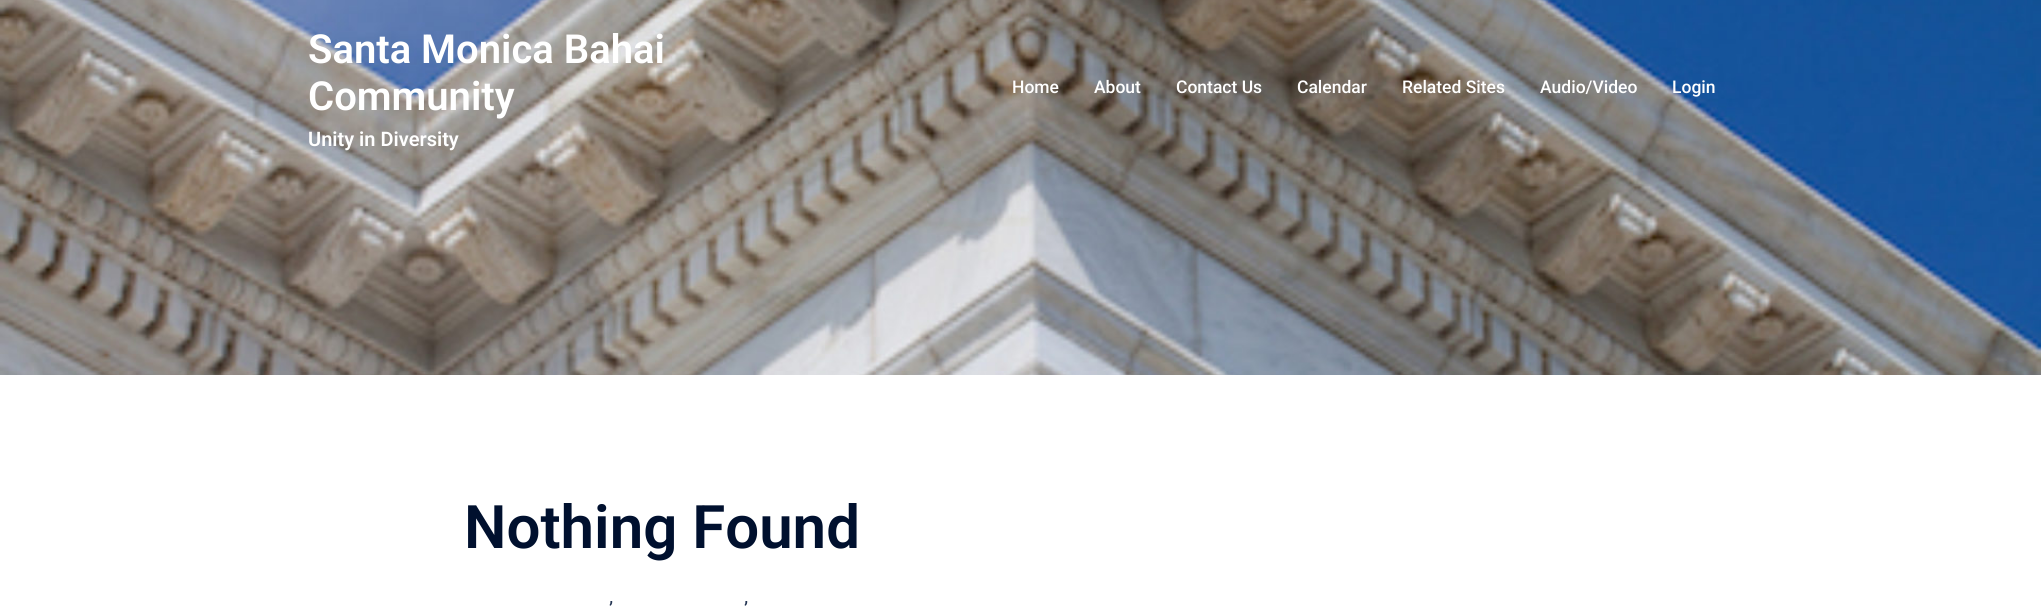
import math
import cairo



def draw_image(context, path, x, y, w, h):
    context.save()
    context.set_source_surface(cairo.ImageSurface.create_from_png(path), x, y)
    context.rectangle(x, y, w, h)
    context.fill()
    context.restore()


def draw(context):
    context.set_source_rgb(1, 1, 1)
    context.paint()
    draw_image(context, "images/1.png", 0, 0, 2041, 375)
    context.select_font_face("Roboto SemiBold")
    context.set_font_size(40)
    context.set_source_rgb(1, 1, 1)
    context.move_to(308, 63)
    context.show_text("Santa Monica Bahai")
    context.move_to(308, 110)
    context.show_text("Community")
    context.set_font_size(20)
    context.move_to(308, 146)
    context.show_text("Unity in Diversity")
    context.select_font_face("Roboto Medium")
    context.set_font_size(17.5)
    context.move_to(1012, 93)
    context.show_text("Home")
    context.move_to(1094, 93)
    context.show_text("About")
    context.move_to(1176, 93)
    context.show_text("Contact Us")
    context.move_to(1297, 93)
    context.show_text("Calendar")
    context.move_to(1402, 93)
    context.show_text("Related Sites")
    context.move_to(1540, 93)
    context.show_text("Audio/Video")
    context.move_to(1672, 93)
    context.show_text("Login")
    context.select_font_face("Roboto SemiBold")
    context.set_font_size(60)
    context.set_source_rgb(0, 16 / 255, 46 / 255)
    context.move_to(464, 548)
    context.show_text("Nothing Found")
    context.select_font_face("Roboto")
    context.set_font_size(20)
    context.set_source_rgb(35 / 255, 52 / 255, 82 / 255)
    context.move_to(609, 616)
    context.show_text("’")
    context.move_to(744, 616)
    context.show_text("’")


surface = cairo.ImageSurface(cairo.Format.RGB24, 2041, 610)
context = cairo.Context(surface)
options = cairo.FontOptions()
options.set_hint_metrics(cairo.HintMetrics.OFF)
options.set_hint_style(cairo.HintStyle.NONE)
context.set_font_options(options)
context.set_miter_limit(4)
draw(context)
surface.write_to_png("out.png")
